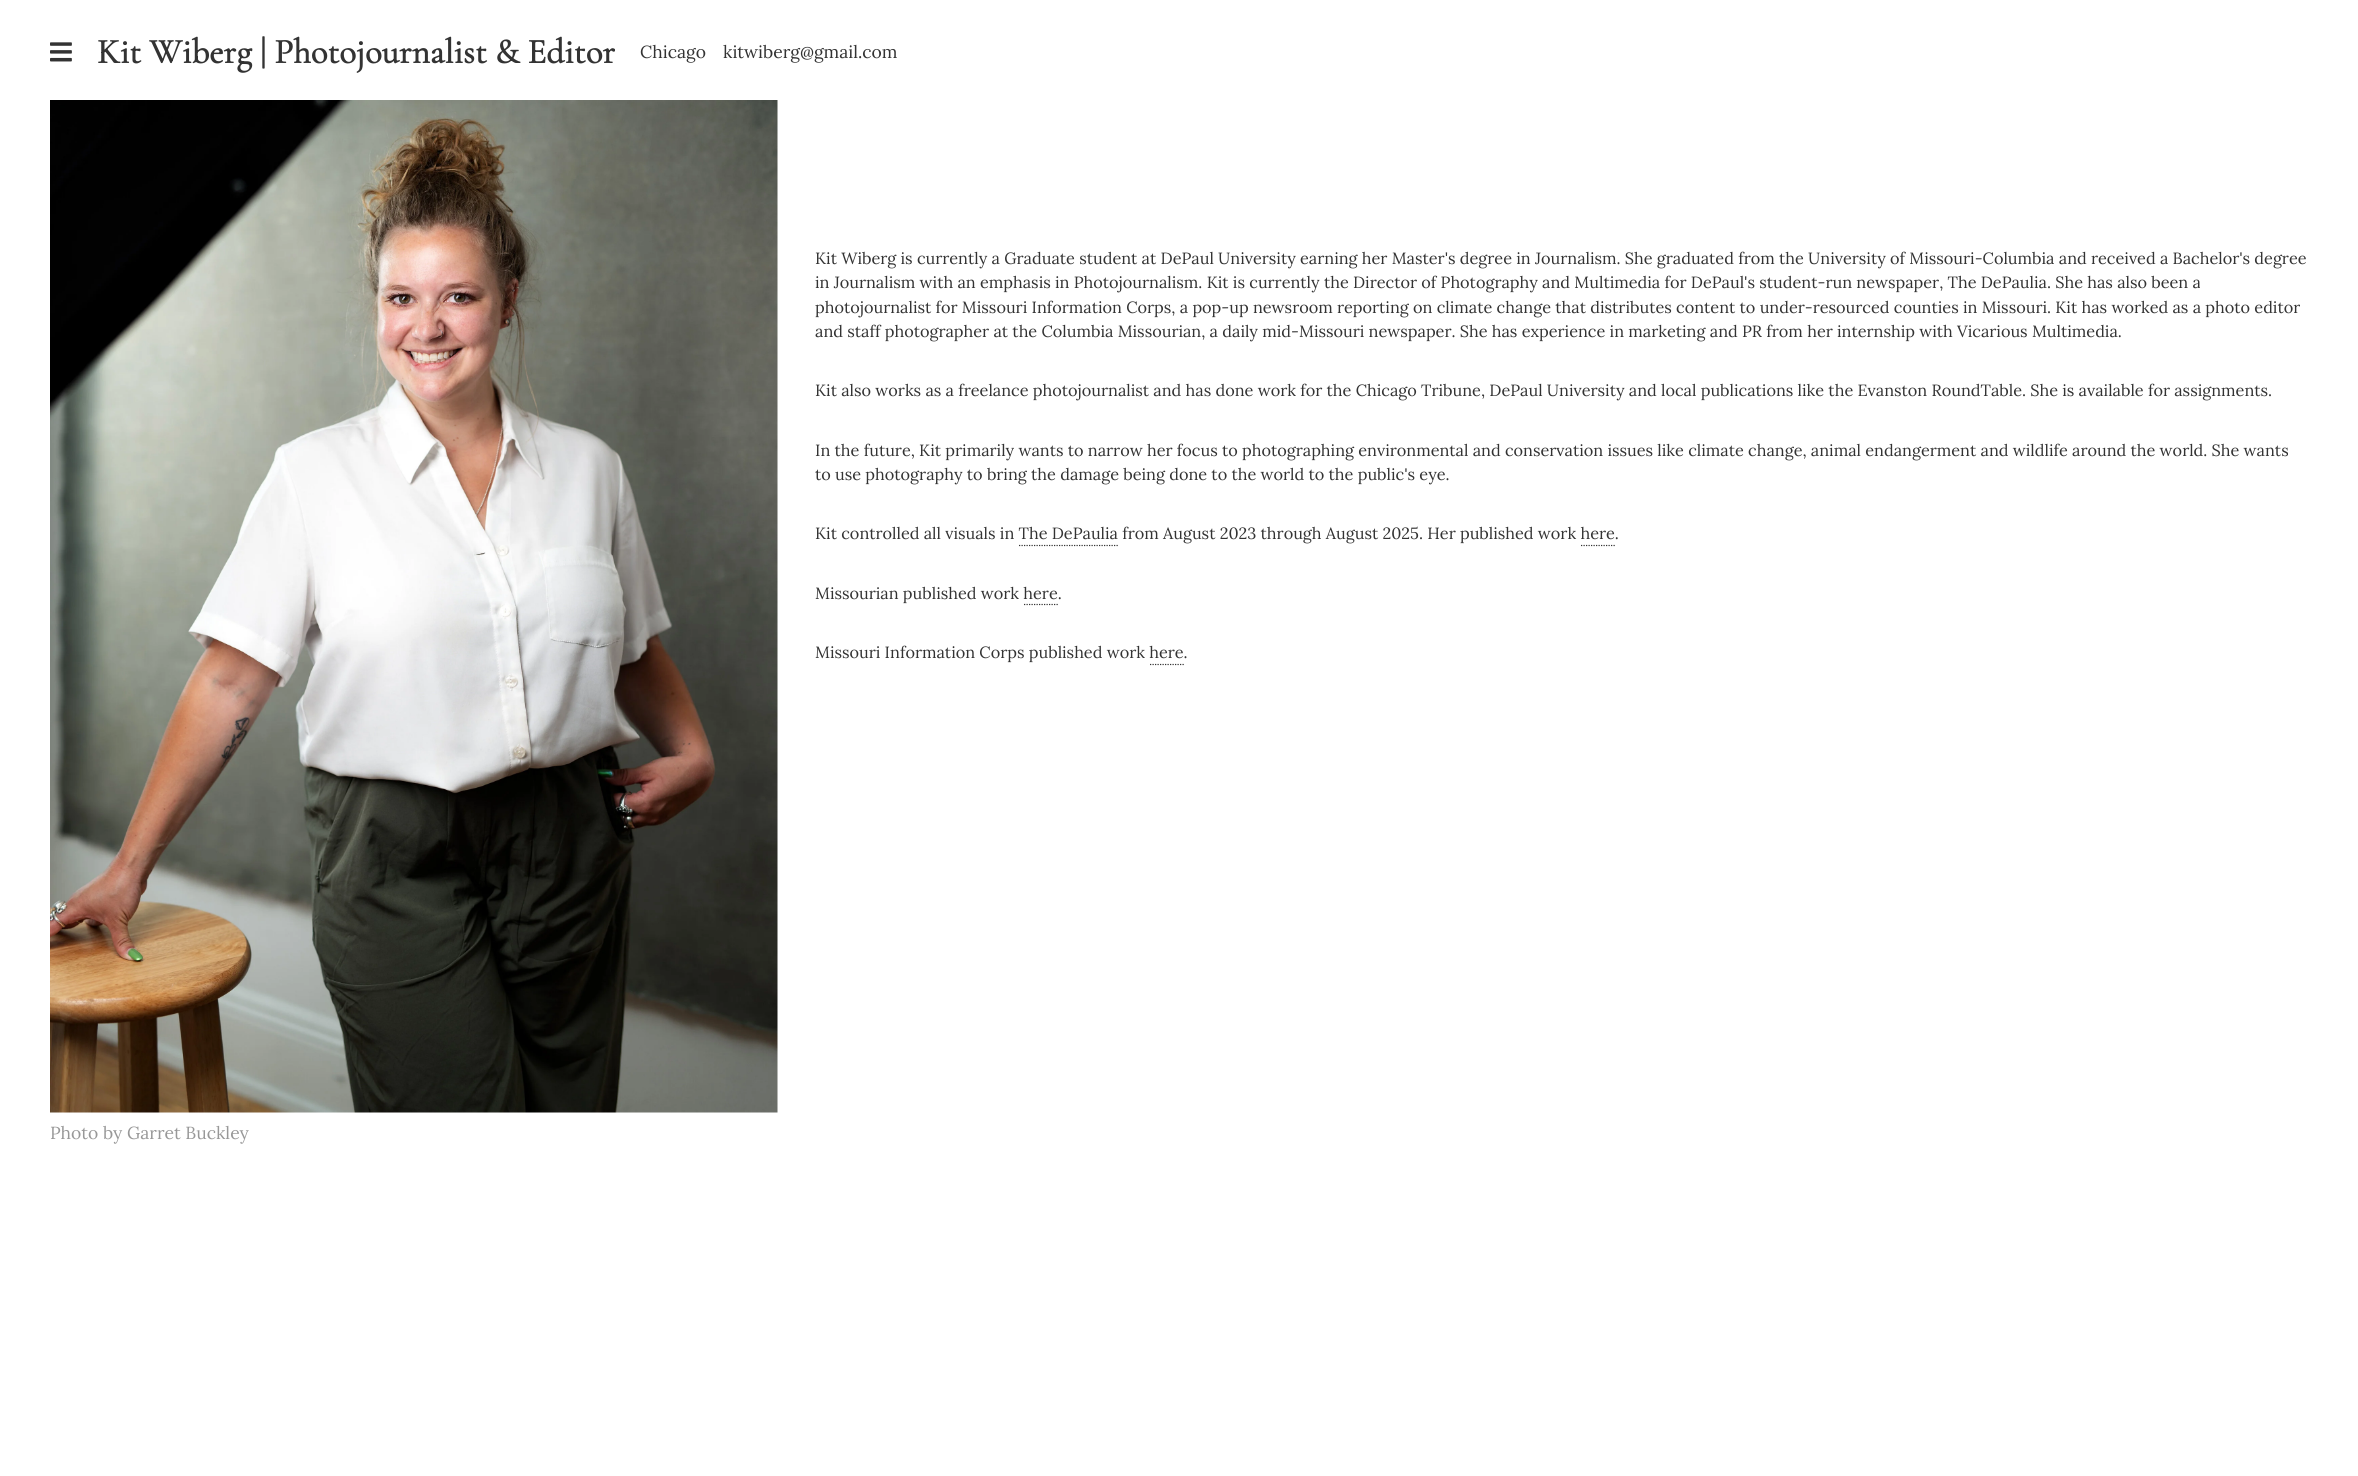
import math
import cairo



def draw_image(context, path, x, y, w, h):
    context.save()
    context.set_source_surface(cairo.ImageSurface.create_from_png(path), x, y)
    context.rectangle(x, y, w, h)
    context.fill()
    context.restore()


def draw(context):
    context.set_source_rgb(1, 1, 1)
    context.paint()
    draw_image(context, "images/1.png", 50, 42, 22, 20)
    context.new_path()
    context.move_to(1019, 545.5)
    context.line_to(1119, 545.5)
    context.set_source_rgb(51 / 255, 51 / 255, 51 / 255)
    context.set_line_width(1.2)
    context.set_dash([1.25, 1.25])
    context.stroke()
    context.new_path()
    context.move_to(1581, 545.5)
    context.line_to(1615, 545.5)
    context.stroke()
    context.new_path()
    context.move_to(1024, 604.5)
    context.line_to(1059, 604.5)
    context.stroke()
    context.new_path()
    context.move_to(1150, 664.5)
    context.line_to(1184, 664.5)
    context.stroke()
    draw_image(context, "images/2.png", 50, 100, 728, 1013)
    context.select_font_face("Cormorant Garamond", cairo.FontSlant.NORMAL, cairo.FontWeight.BOLD)
    context.set_font_size(35)
    context.move_to(97, 63)
    context.show_text("Kit Wiberg | Photojournalist & Editor")
    context.select_font_face("Lora")
    context.set_font_size(17.5)
    context.move_to(640, 58)
    context.show_text("Chicago")
    context.move_to(723, 58)
    context.show_text("kitwiberg@gmail.com")
    context.set_font_size(16.25)
    context.move_to(815, 264)
    context.show_text("Kit Wiberg is currently a Graduate student at DePaul University earning her Master's degree in Journalism. She graduated from the University of Missouri-Columbia and received a Bachelor's degree")
    context.move_to(815, 288)
    context.show_text("in Journalism with an emphasis in Photojournalism. Kit is currently the Director of Photography and Multimedia for DePaul's student-run newspaper, The DePaulia. She has also been a")
    context.move_to(815, 313)
    context.show_text("photojournalist for Missouri Information Corps, a pop-up newsroom reporting on climate change that distributes content to under-resourced counties in Missouri. Kit has worked as a photo editor")
    context.move_to(815, 337)
    context.show_text("and staff photographer at the Columbia Missourian, a daily mid-Missouri newspaper. She has experience in marketing and PR from her internship with Vicarious Multimedia.")
    context.move_to(815, 396)
    context.show_text("Kit also works as a freelance photojournalist and has done work for the Chicago Tribune, DePaul University and local publications like the Evanston RoundTable. She is available for assignments.")
    context.move_to(815, 456)
    context.show_text("In the future, Kit primarily wants to narrow her focus to photographing environmental and conservation issues like climate change, animal endangerment and wildlife around the world. She wants")
    context.move_to(815, 480)
    context.show_text("to use photography to bring the damage being done to the world to the public's eye.")
    context.move_to(815, 539)
    context.show_text("Kit controlled all visuals in The DePaulia from August 2023 through August 2025. Her published work here.")
    context.move_to(815, 599)
    context.show_text("Missourian published work here.")
    context.move_to(815, 658)
    context.show_text("Missouri Information Corps published work here.")
    context.set_font_size(17.5)
    context.set_source_rgb(152 / 255, 152 / 255, 152 / 255)
    context.move_to(50, 1139)
    context.show_text("Photo by Garret Buckley")


surface = cairo.ImageSurface(cairo.Format.RGB24, 2358, 1476)
context = cairo.Context(surface)
options = cairo.FontOptions()
options.set_hint_metrics(cairo.HintMetrics.OFF)
options.set_hint_style(cairo.HintStyle.NONE)
context.set_font_options(options)
context.set_miter_limit(4)
draw(context)
surface.write_to_png("out.png")
